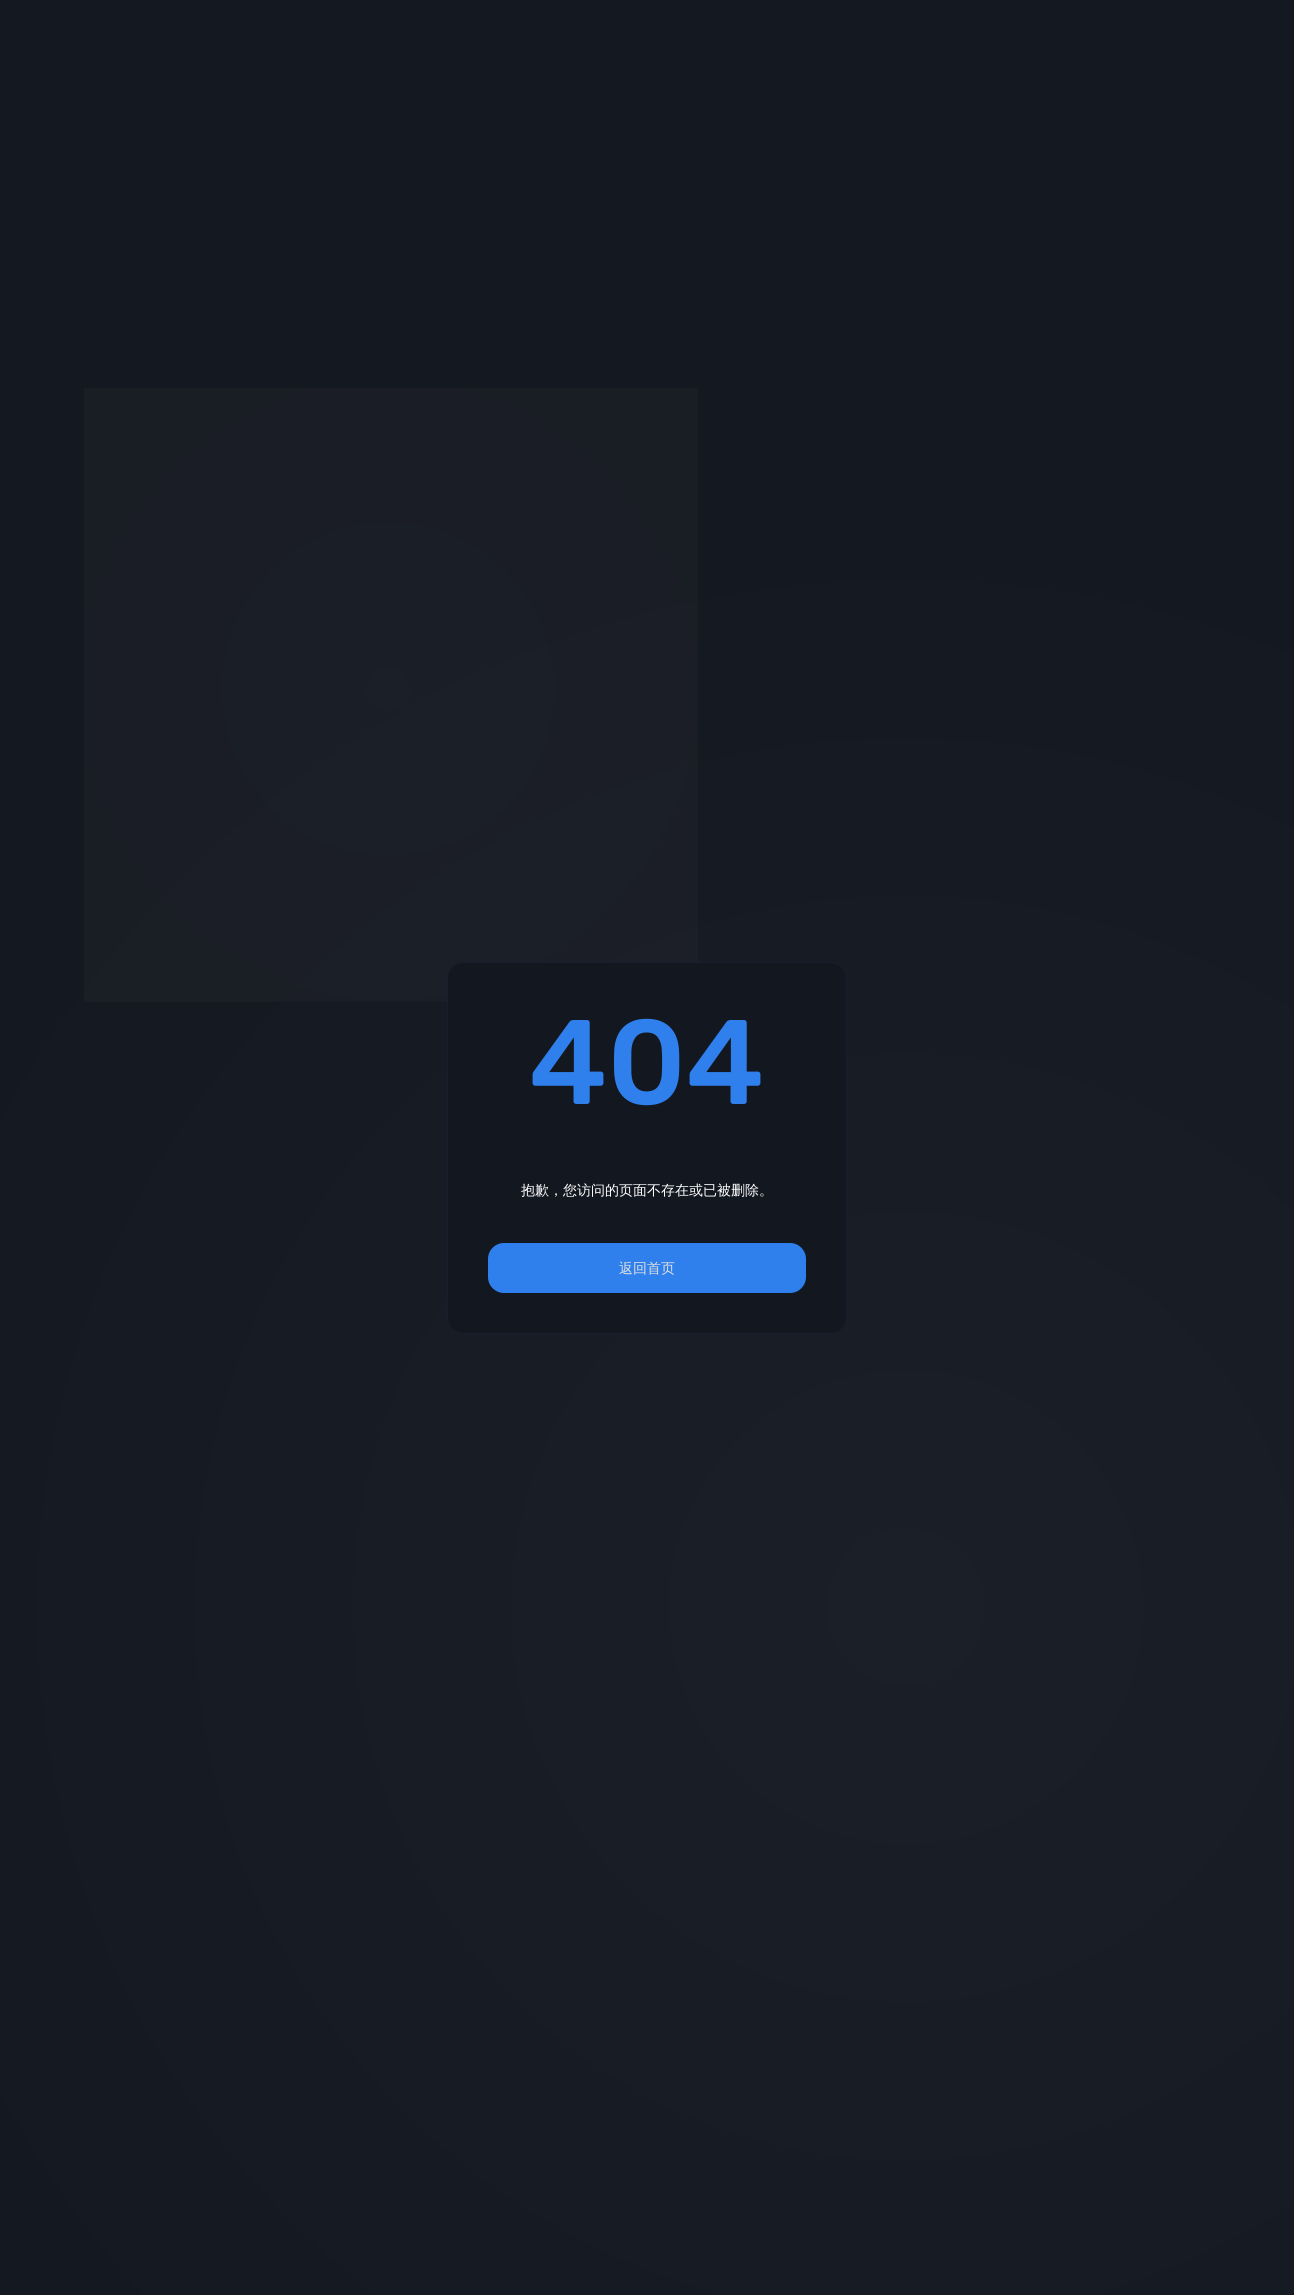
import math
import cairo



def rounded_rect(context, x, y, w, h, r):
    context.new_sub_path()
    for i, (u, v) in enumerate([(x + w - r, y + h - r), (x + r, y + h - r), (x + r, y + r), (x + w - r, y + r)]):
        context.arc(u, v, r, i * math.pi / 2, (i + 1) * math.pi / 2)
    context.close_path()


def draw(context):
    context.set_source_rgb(1, 1, 1)
    context.paint()
    gradient = cairo.RadialGradient(906, 1607, 0, 906, 1607, 1844)
    gradient.add_color_stop_rgba(0, 27 / 255, 31 / 255, 39 / 255, 1)
    gradient.add_color_stop_rgba(0.6, 20 / 255, 24 / 255, 32 / 255, 1)
    context.set_source(gradient)
    context.rectangle(0, 0, 1294, 2295)
    context.fill()
    gradient = cairo.RadialGradient(388, 689, 0, 388, 689, 1844)
    gradient.add_color_stop_rgba(0, 1, 1, 1, 0.03)
    gradient.add_color_stop_rgba(0.6, 1, 1, 1, 0)
    context.set_source(gradient)
    context.rectangle(84, 388, 614, 614)
    context.fill()
    context.set_source_rgb(19 / 255, 23 / 255, 32 / 255)
    rounded_rect(context, 447.5, 962.5, 399, 371, 15.5)
    context.fill_preserve()
    context.set_source_rgb(21 / 255, 31 / 255, 48 / 255)
    context.set_line_width(1)
    context.stroke()
    context.set_source_rgb(47 / 255, 128 / 255, 237 / 255)
    rounded_rect(context, 488, 1243, 318, 50, 16)
    context.fill()
    context.select_font_face("Rubik Medium")
    context.set_font_size(120)
    context.move_to(529, 1104)
    context.show_text("404")
    context.select_font_face("WenQuanYi Zen Hei Medium")
    context.set_font_size(14)
    context.set_source_rgb(1, 1, 1)
    context.move_to(521, 1195)
    context.show_text("抱歉，您访问的页面不存在或已被删除。")
    context.set_source_rgb(224 / 255, 224 / 255, 224 / 255)
    context.move_to(619, 1273)
    context.show_text("返回首页")


surface = cairo.ImageSurface(cairo.Format.RGB24, 1294, 2295)
context = cairo.Context(surface)
options = cairo.FontOptions()
options.set_hint_metrics(cairo.HintMetrics.OFF)
options.set_hint_style(cairo.HintStyle.NONE)
context.set_font_options(options)
context.set_miter_limit(4)
draw(context)
surface.write_to_png("out.png")
